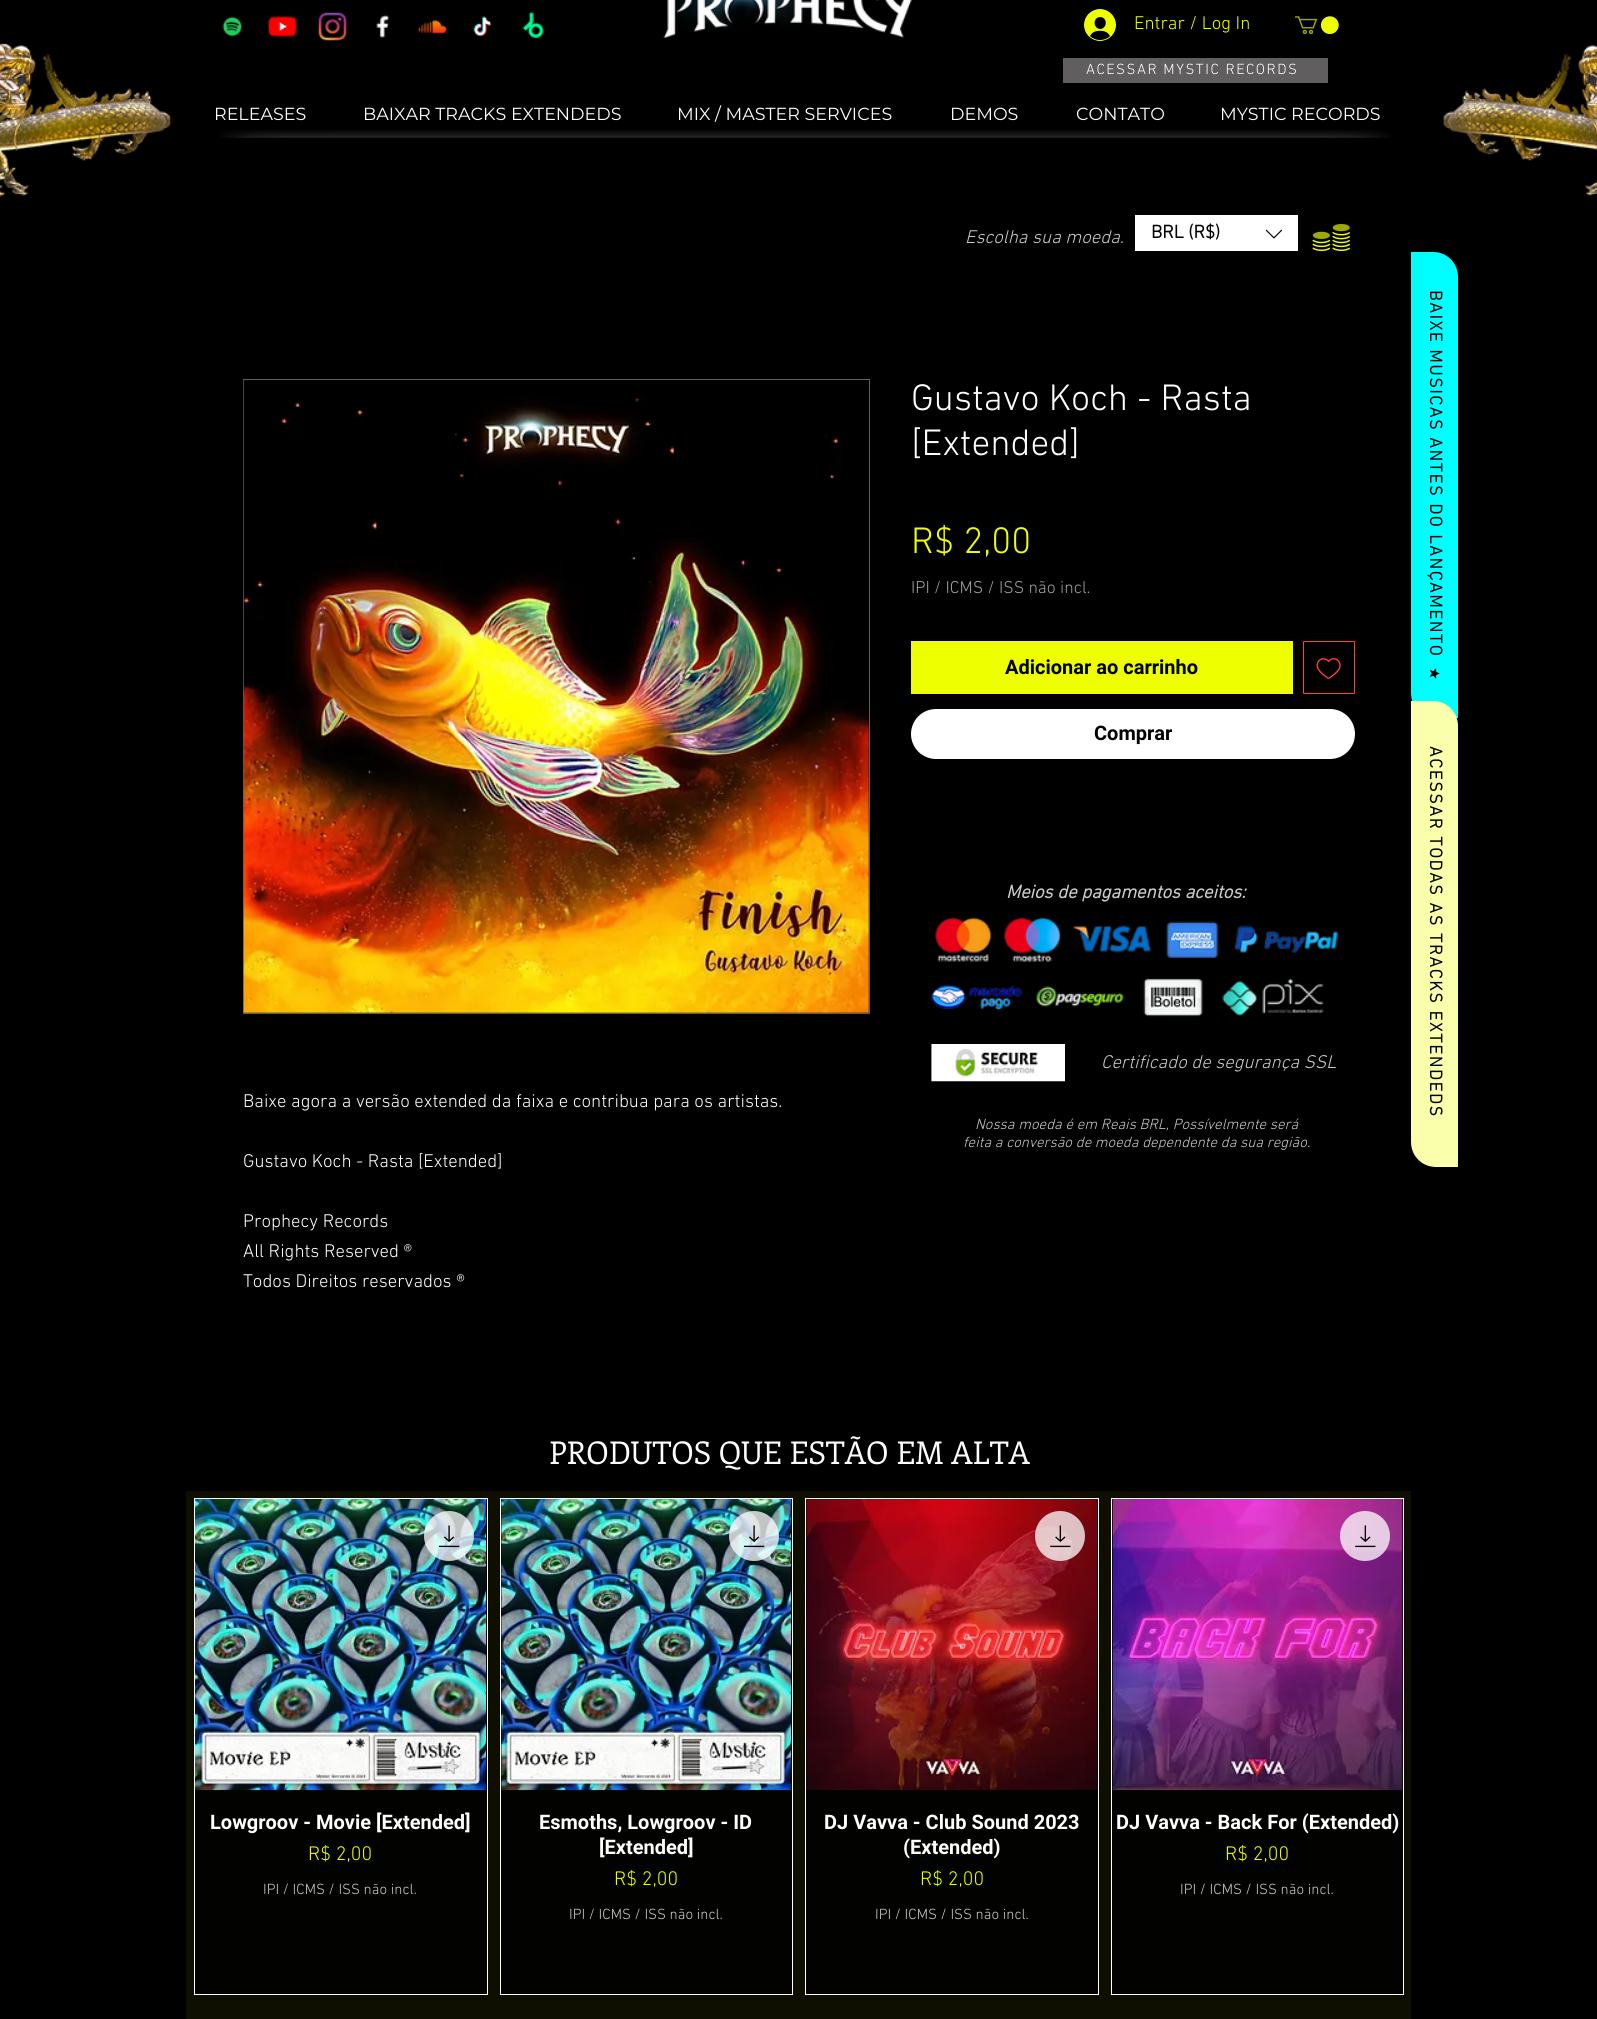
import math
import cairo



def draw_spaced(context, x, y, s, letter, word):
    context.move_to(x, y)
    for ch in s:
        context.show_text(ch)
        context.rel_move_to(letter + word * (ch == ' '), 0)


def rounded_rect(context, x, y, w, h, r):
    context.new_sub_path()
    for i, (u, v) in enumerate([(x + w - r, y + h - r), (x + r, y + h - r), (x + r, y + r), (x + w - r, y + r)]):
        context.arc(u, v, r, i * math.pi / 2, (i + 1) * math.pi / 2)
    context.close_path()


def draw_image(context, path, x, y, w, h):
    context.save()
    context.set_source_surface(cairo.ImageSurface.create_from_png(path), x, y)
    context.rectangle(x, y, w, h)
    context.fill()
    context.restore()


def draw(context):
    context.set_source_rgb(0, 0, 0)
    context.paint()
    draw_image(context, "images/1.png", 222, 16, 21, 21)
    draw_image(context, "images/2.png", 268, 16, 29, 21)
    draw_image(context, "images/3.png", 318, 12, 29, 29)
    draw_image(context, "images/4.png", 376, 15, 13, 23)
    draw_image(context, "images/5.png", 418, 20, 29, 15)
    draw_image(context, "images/6.png", 473, 16, 19, 21)
    draw_image(context, "images/7.png", 522, 12, 22, 27)
    draw_image(context, "images/8.png", 663, 0, 250, 38)
    draw_image(context, "images/9.png", 1084, 9, 32, 32)
    draw_image(context, "images/10.png", 1295, 16, 44, 18)
    draw_image(context, "images/11.png", 0, 43, 172, 154)
    context.set_source_rgb(96 / 255, 94 / 255, 94 / 255)
    context.rectangle(1063, 58, 265, 25)
    context.fill()
    draw_image(context, "images/12.png", 1442, 45, 155, 151)
    draw_image(context, "images/14.png", 333, 130, 945, 8)
    draw_image(context, "images/13.png", 220, 130, 114, 8)
    draw_image(context, "images/15.png", 1277, 130, 114, 8)
    context.set_source_rgb(1, 1, 1)
    context.rectangle(1135, 215, 163, 36)
    context.fill()
    draw_image(context, "images/16.png", 1265, 229, 18, 10)
    draw_image(context, "images/17.png", 1312, 224, 38, 27)
    context.set_source_rgb(238 / 255, 1, 0)
    context.rectangle(911, 641, 382, 53)
    context.fill()
    rounded_rect(context, 1303.5, 641.5, 51, 52, 0.5)
    context.set_source_rgb(1, 64 / 255, 64 / 255)
    context.set_line_width(1)
    context.stroke()
    draw_image(context, "images/18.png", 1316, 658, 25, 21)
    context.set_source_rgb(1, 1, 1)
    rounded_rect(context, 911, 709, 444, 50, 25)
    context.fill()
    context.rectangle(243.5, 379.5, 626, 634)
    context.set_source_rgb(96 / 255, 94 / 255, 94 / 255)
    context.stroke()
    draw_image(context, "images/19.png", 243, 380, 626, 633)
    context.set_source_rgb(0, 1, 1)
    context.new_path()
    context.move_to(1458, 277)
    context.line_to(1458, 718)
    context.line_to(1436, 718)
    context.curve_to(1422, 718, 1411, 707, 1411, 693)
    context.line_to(1411, 252)
    context.line_to(1433, 252)
    context.curve_to(1447, 252, 1458, 263, 1458, 277)
    context.close_path()
    context.fill()
    draw_image(context, "images/20.png", 1430, 668, 10, 11)
    context.set_source_rgb(249 / 255, 1, 170 / 255)
    context.new_path()
    context.move_to(1458, 726)
    context.line_to(1458, 1167)
    context.line_to(1436, 1167)
    context.curve_to(1422, 1167, 1411, 1156, 1411, 1142)
    context.line_to(1411, 701)
    context.line_to(1433, 701)
    context.curve_to(1447, 701, 1458, 712, 1458, 726)
    context.close_path()
    context.fill()
    draw_image(context, "images/21.png", 931, 917, 408, 100)
    draw_image(context, "images/22.png", 931, 1044, 134, 38)
    context.set_source_rgb(14 / 255, 15 / 255, 0)
    context.rectangle(186, 1491, 1225, 528)
    context.fill()
    context.set_source_rgb(2 / 255, 2 / 255, 0)
    context.rectangle(194.5, 1498.5, 293, 496)
    context.fill_preserve()
    context.set_source_rgb(1, 1, 1)
    context.stroke()
    draw_image(context, "images/23.png", 195, 1499, 292, 292)
    context.set_source_rgba(1, 1, 1, 0.75)
    context.arc(449, 1536, 25, 0, 2 * math.pi)
    context.fill()
    draw_image(context, "images/24.png", 438, 1525, 22, 23)
    context.set_source_rgb(2 / 255, 2 / 255, 0)
    context.rectangle(500.5, 1498.5, 292, 496)
    context.fill_preserve()
    context.set_source_rgb(1, 1, 1)
    context.stroke()
    draw_image(context, "images/25.png", 501, 1499, 291, 292)
    context.set_source_rgba(1, 1, 1, 0.75)
    context.arc(754, 1536, 25, 0, 2 * math.pi)
    context.fill()
    draw_image(context, "images/26.png", 743, 1525, 22, 23)
    context.set_source_rgb(2 / 255, 2 / 255, 0)
    context.rectangle(805.5, 1498.5, 293, 496)
    context.fill_preserve()
    context.set_source_rgb(1, 1, 1)
    context.stroke()
    draw_image(context, "images/27.png", 806, 1499, 292, 292)
    context.set_source_rgba(1, 1, 1, 0.75)
    context.arc(1060, 1536, 25, 0, 2 * math.pi)
    context.fill()
    draw_image(context, "images/28.png", 1050, 1525, 21, 23)
    context.set_source_rgb(2 / 255, 2 / 255, 0)
    context.rectangle(1111.5, 1498.5, 292, 496)
    context.fill_preserve()
    context.set_source_rgb(1, 1, 1)
    context.stroke()
    draw_image(context, "images/29.png", 1112, 1499, 291, 292)
    context.set_source_rgba(1, 1, 1, 0.75)
    context.arc(1365, 1536, 25, 0, 2 * math.pi)
    context.fill()
    draw_image(context, "images/30.png", 1355, 1525, 21, 23)
    context.select_font_face("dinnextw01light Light")
    context.set_font_size(18.75)
    context.set_source_rgb(238 / 255, 1, 0)
    context.move_to(1134, 29)
    context.show_text("Entrar / Log In")
    context.set_font_size(15)
    context.set_source_rgb(1, 1, 1)
    draw_spaced(context, 1086, 74, "ACESSAR MYSTIC RECORDS", 1.5, 0)
    context.select_font_face("Montserrat")
    context.set_font_size(17.5)
    context.move_to(214, 120)
    context.show_text("RELEASES")
    context.move_to(363, 120)
    context.show_text("BAIXAR TRACKS EXTENDEDS")
    context.move_to(677, 120)
    context.show_text("MIX / MASTER SERVICES")
    context.move_to(950, 120)
    context.show_text("DEMOS")
    context.move_to(1076, 120)
    context.show_text("CONTATO")
    context.move_to(1220, 120)
    context.show_text("MYSTIC RECORDS")
    context.select_font_face("dinnextw01light Light", cairo.FontSlant.ITALIC)
    context.set_font_size(18.75)
    context.set_source_rgb(204 / 255, 204 / 255, 204 / 255)
    context.move_to(965, 243)
    context.show_text("Escolha sua moeda.")
    context.select_font_face("dinnextw01light", cairo.FontSlant.NORMAL, cairo.FontWeight.BOLD)
    context.set_source_rgb(0, 0, 0)
    context.move_to(1151, 238)
    context.show_text("BRL (R$)")
    context.select_font_face("dinnextw01light Light")
    context.set_font_size(37.5)
    context.set_source_rgb(1, 1, 1)
    context.move_to(911, 410)
    context.show_text("Gustavo Koch - Rasta")
    context.move_to(911, 455)
    context.show_text("[Extended]")
    context.set_source_rgb(238 / 255, 1, 0)
    context.move_to(911, 553)
    context.show_text("R$ 2,00")
    context.set_font_size(17.5)
    context.set_source_rgb(160 / 255, 160 / 255, 159 / 255)
    context.move_to(911, 593)
    context.show_text("IPI / ICMS / ISS não incl.")
    context.select_font_face("Roboto", cairo.FontSlant.NORMAL, cairo.FontWeight.BOLD)
    context.set_font_size(20)
    context.set_source_rgb(0, 0, 0)
    context.move_to(1005, 674)
    context.show_text("Adicionar ao carrinho")
    context.move_to(1094, 740)
    context.show_text("Comprar")
    context.select_font_face("dinnextw01light Light")
    context.set_font_size(18.75)
    context.set_source_rgb(1, 1, 1)
    context.move_to(243, 1107)
    context.show_text("Baixe agora a versão extended da faixa e contribua para os artistas.")
    context.move_to(243, 1167)
    context.show_text("Gustavo Koch - Rasta [Extended]")
    context.move_to(243, 1227)
    context.show_text("Prophecy Records")
    context.move_to(243, 1257)
    context.show_text("All Rights Reserved ®")
    context.move_to(243, 1287)
    context.show_text("Todos Direitos reservados ®")
    context.select_font_face("dinnextw01light", cairo.FontSlant.NORMAL, cairo.FontWeight.BOLD)
    context.set_font_size(17.5)
    context.set_source_rgb(0, 0, 0)
    context.save()
    context.translate(1430, 290)
    context.rotate(90 * math.pi / 180)
    draw_spaced(context, 0, 0, "BAIXE MUSICAS ANTES DO LANÇAMENTO", 1.75, 0)
    context.restore()
    context.select_font_face("dinnextw01light", cairo.FontSlant.ITALIC, cairo.FontWeight.BOLD)
    context.set_font_size(18.75)
    context.set_source_rgb(204 / 255, 204 / 255, 204 / 255)
    context.move_to(1006, 898)
    context.show_text("Meios de pagamentos aceitos:")
    context.select_font_face("dinnextw01light", cairo.FontSlant.NORMAL, cairo.FontWeight.BOLD)
    context.set_font_size(17.5)
    context.set_source_rgb(0, 0, 0)
    context.save()
    context.translate(1430, 746)
    context.rotate(90 * math.pi / 180)
    draw_spaced(context, 0, 0, "ACESSAR TODAS AS TRACKS EXTENDEDS", 1.75, 0)
    context.restore()
    context.select_font_face("dinnextw01light Light", cairo.FontSlant.ITALIC)
    context.set_font_size(18.75)
    context.set_source_rgb(204 / 255, 204 / 255, 204 / 255)
    context.move_to(1101, 1068)
    context.show_text("Certificado de segurança SSL")
    context.set_font_size(15)
    context.move_to(975, 1129)
    context.show_text("Nossa moeda é em Reais BRL, Possívelmente será")
    context.move_to(963, 1147)
    context.show_text("feita a conversão de moeda dependente da sua região.")
    context.select_font_face("Enriqueta")
    context.set_font_size(31.25)
    context.set_source_rgb(1, 1, 1)
    context.move_to(549, 1464)
    context.show_text("PRODUTOS QUE ESTÃO EM ALTA")
    context.select_font_face("Roboto", cairo.FontSlant.NORMAL, cairo.FontWeight.BOLD)
    context.set_font_size(20)
    context.move_to(210, 1829)
    context.show_text("Lowgroov - Movie [Extended]")
    context.select_font_face("dinnextw01light Light")
    context.set_source_rgb(238 / 255, 1, 0)
    context.move_to(308, 1860)
    context.show_text("R$ 2,00")
    context.set_font_size(15)
    context.set_source_rgb(204 / 255, 204 / 255, 204 / 255)
    context.move_to(263, 1894)
    context.show_text("IPI / ICMS / ISS não incl.")
    context.select_font_face("Roboto", cairo.FontSlant.NORMAL, cairo.FontWeight.BOLD)
    context.set_font_size(20)
    context.set_source_rgb(1, 1, 1)
    context.move_to(539, 1829)
    context.show_text("Esmoths, Lowgroov - ID")
    context.move_to(599, 1854)
    context.show_text("[Extended]")
    context.select_font_face("dinnextw01light Light")
    context.set_source_rgb(238 / 255, 1, 0)
    context.move_to(614, 1885)
    context.show_text("R$ 2,00")
    context.set_font_size(15)
    context.set_source_rgb(204 / 255, 204 / 255, 204 / 255)
    context.move_to(569, 1919)
    context.show_text("IPI / ICMS / ISS não incl.")
    context.select_font_face("Roboto", cairo.FontSlant.NORMAL, cairo.FontWeight.BOLD)
    context.set_font_size(20)
    context.set_source_rgb(1, 1, 1)
    context.move_to(824, 1829)
    context.show_text("DJ Vavva - Club Sound 2023")
    context.move_to(903, 1854)
    context.show_text("(Extended)")
    context.select_font_face("dinnextw01light Light")
    context.set_source_rgb(238 / 255, 1, 0)
    context.move_to(920, 1885)
    context.show_text("R$ 2,00")
    context.set_font_size(15)
    context.set_source_rgb(204 / 255, 204 / 255, 204 / 255)
    context.move_to(875, 1919)
    context.show_text("IPI / ICMS / ISS não incl.")
    context.select_font_face("Roboto", cairo.FontSlant.NORMAL, cairo.FontWeight.BOLD)
    context.set_font_size(20)
    context.set_source_rgb(1, 1, 1)
    context.move_to(1116, 1829)
    context.show_text("DJ Vavva - Back For (Extended)")
    context.select_font_face("dinnextw01light Light")
    context.set_source_rgb(238 / 255, 1, 0)
    context.move_to(1225, 1860)
    context.show_text("R$ 2,00")
    context.set_font_size(15)
    context.set_source_rgb(204 / 255, 204 / 255, 204 / 255)
    context.move_to(1180, 1894)
    context.show_text("IPI / ICMS / ISS não incl.")


surface = cairo.ImageSurface(cairo.Format.RGB24, 1597, 2019)
context = cairo.Context(surface)
options = cairo.FontOptions()
options.set_hint_metrics(cairo.HintMetrics.OFF)
options.set_hint_style(cairo.HintStyle.NONE)
context.set_font_options(options)
context.set_miter_limit(4)
draw(context)
surface.write_to_png("out.png")
